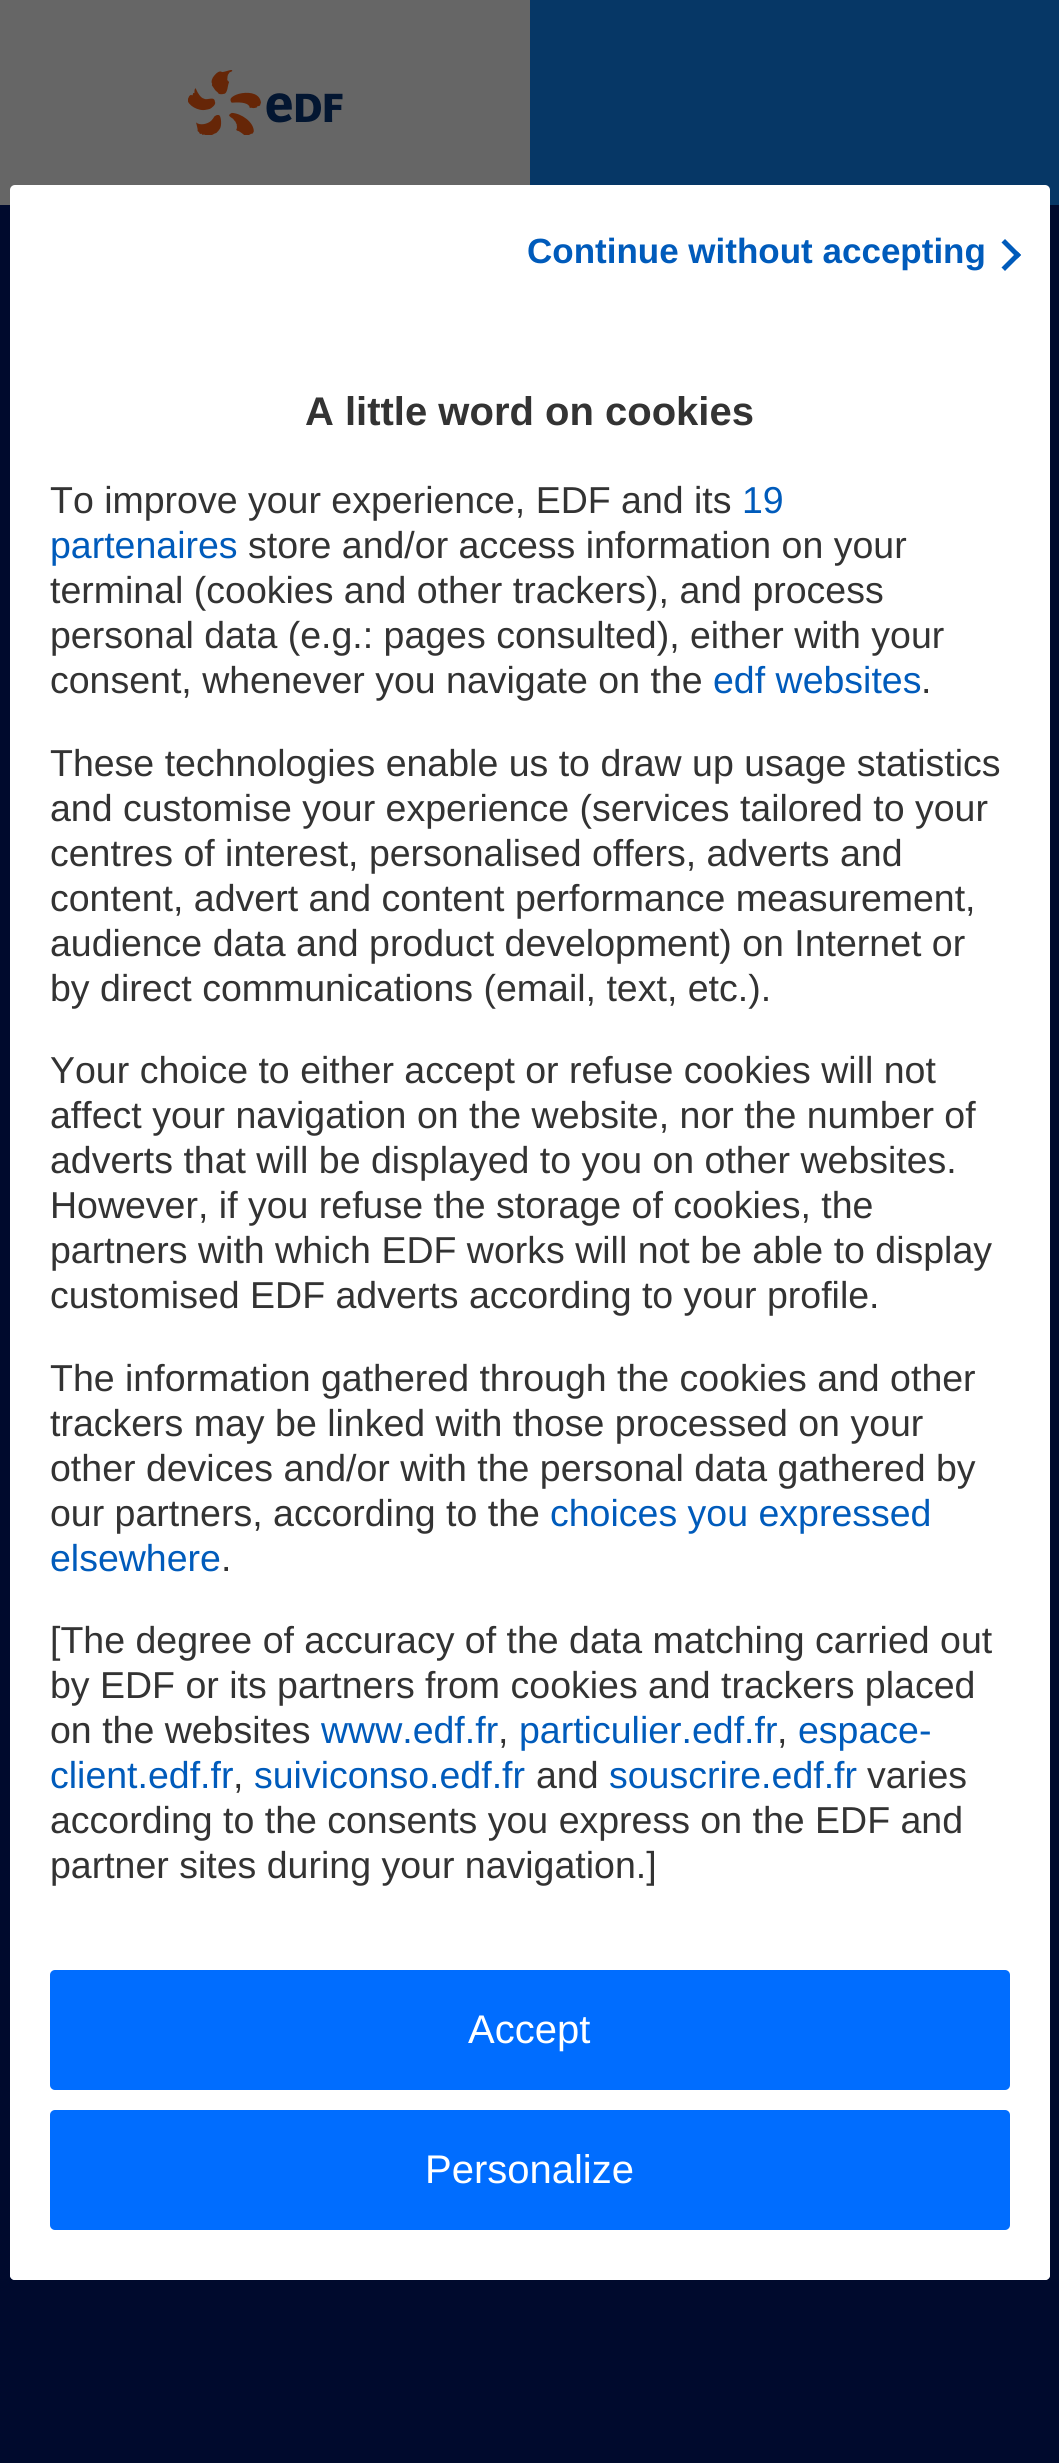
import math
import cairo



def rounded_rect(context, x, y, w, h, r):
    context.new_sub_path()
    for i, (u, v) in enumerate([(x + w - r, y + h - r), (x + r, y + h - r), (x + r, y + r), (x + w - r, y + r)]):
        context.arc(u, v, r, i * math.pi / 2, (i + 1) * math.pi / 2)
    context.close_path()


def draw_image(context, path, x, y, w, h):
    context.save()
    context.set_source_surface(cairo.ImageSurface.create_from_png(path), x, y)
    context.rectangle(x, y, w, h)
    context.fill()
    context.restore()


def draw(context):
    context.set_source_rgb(0, 10 / 255, 45 / 255)
    context.paint()
    context.set_source_rgb(102 / 255, 102 / 255, 102 / 255)
    context.rectangle(0, 0, 530, 205)
    context.fill()
    draw_image(context, "images/1.png", 188, 70, 155, 65)
    context.set_source_rgb(6 / 255, 55 / 255, 102 / 255)
    context.rectangle(530, 0, 529, 205)
    context.fill()
    context.set_source_rgb(1, 1, 1)
    rounded_rect(context, 10, 185, 1040, 2095, 5)
    context.fill()
    context.set_source_rgb(0, 91 / 255, 187 / 255)
    context.new_path()
    context.move_to(1005, 239)
    context.line_to(1021, 255)
    context.line_to(1017.5, 258.5)
    context.line_to(1001.5, 242.5)
    context.close_path()
    context.fill()
    context.new_path()
    context.move_to(1017.5, 251.5)
    context.line_to(1021, 255)
    context.line_to(1005, 271)
    context.line_to(1001.5, 267.5)
    context.close_path()
    context.fill()
    context.set_source_rgb(1, 1, 1)
    rounded_rect(context, 10, 1920, 1040, 360, 5)
    context.fill()
    context.set_source_rgb(0, 109 / 255, 1)
    rounded_rect(context, 50, 1970, 960, 120, 5)
    context.fill()
    rounded_rect(context, 50, 2110, 960, 120, 5)
    context.fill()
    context.select_font_face("Liberation Sans", cairo.FontSlant.NORMAL, cairo.FontWeight.BOLD)
    context.set_font_size(35)
    context.set_source_rgb(0, 91 / 255, 187 / 255)
    context.move_to(527, 263)
    context.show_text("Continue without accepting")
    context.set_font_size(40)
    context.set_source_rgb(51 / 255, 51 / 255, 51 / 255)
    context.move_to(305, 425)
    context.show_text("A little word on cookies")
    context.select_font_face("Liberation Sans")
    context.set_font_size(37.5)
    context.move_to(50, 513)
    context.show_text("To improve your experience, EDF and its")
    context.set_source_rgb(0, 91 / 255, 187 / 255)
    context.move_to(742, 513)
    context.show_text("19")
    context.move_to(50, 558)
    context.show_text("partenaires")
    context.set_source_rgb(51 / 255, 51 / 255, 51 / 255)
    context.move_to(248, 558)
    context.show_text("store and/or access information on your")
    context.move_to(50, 603)
    context.show_text("terminal (cookies and other trackers), and process")
    context.move_to(50, 648)
    context.show_text("personal data (e.g.: pages consulted), either with your")
    context.move_to(50, 693)
    context.show_text("consent, whenever you navigate on the")
    context.set_source_rgb(0, 91 / 255, 187 / 255)
    context.move_to(713, 693)
    context.show_text("edf websites")
    context.set_source_rgb(51 / 255, 51 / 255, 51 / 255)
    context.move_to(921, 693)
    context.show_text(".")
    context.move_to(50, 776)
    context.show_text("These technologies enable us to draw up usage statistics")
    context.move_to(50, 821)
    context.show_text("and customise your experience (services tailored to your")
    context.move_to(50, 866)
    context.show_text("centres of interest, personalised offers, adverts and")
    context.move_to(50, 911)
    context.show_text("content, advert and content performance measurement,")
    context.move_to(50, 956)
    context.show_text("audience data and product development) on Internet or")
    context.move_to(50, 1001)
    context.show_text("by direct communications (email, text, etc.).")
    context.move_to(50, 1083)
    context.show_text("Your choice to either accept or refuse cookies will not")
    context.move_to(50, 1128)
    context.show_text("affect your navigation on the website, nor the number of")
    context.move_to(50, 1173)
    context.show_text("adverts that will be displayed to you on other websites.")
    context.move_to(50, 1218)
    context.show_text("However, if you refuse the storage of cookies, the")
    context.move_to(50, 1263)
    context.show_text("partners with which EDF works will not be able to display")
    context.move_to(50, 1308)
    context.show_text("customised EDF adverts according to your profile.")
    context.move_to(50, 1391)
    context.show_text("The information gathered through the cookies and other")
    context.move_to(50, 1436)
    context.show_text("trackers may be linked with those processed on your")
    context.move_to(50, 1481)
    context.show_text("other devices and/or with the personal data gathered by")
    context.move_to(50, 1526)
    context.show_text("our partners, according to the")
    context.set_source_rgb(0, 91 / 255, 187 / 255)
    context.move_to(550, 1526)
    context.show_text("choices you expressed")
    context.move_to(50, 1571)
    context.show_text("elsewhere")
    context.set_source_rgb(51 / 255, 51 / 255, 51 / 255)
    context.move_to(221, 1571)
    context.show_text(".")
    context.move_to(50, 1653)
    context.show_text("[The degree of accuracy of the data matching carried out")
    context.move_to(50, 1698)
    context.show_text("by EDF or its partners from cookies and trackers placed")
    context.move_to(50, 1743)
    context.show_text("on the websites")
    context.set_source_rgb(0, 91 / 255, 187 / 255)
    context.move_to(321, 1743)
    context.show_text("www.edf.fr")
    context.set_source_rgb(51 / 255, 51 / 255, 51 / 255)
    context.move_to(498, 1743)
    context.show_text(",")
    context.set_source_rgb(0, 91 / 255, 187 / 255)
    context.move_to(519, 1743)
    context.show_text("particulier.edf.fr")
    context.set_source_rgb(51 / 255, 51 / 255, 51 / 255)
    context.move_to(777, 1743)
    context.show_text(",")
    context.set_source_rgb(0, 91 / 255, 187 / 255)
    context.move_to(798, 1743)
    context.show_text("espace-")
    context.move_to(50, 1788)
    context.show_text("client.edf.fr")
    context.set_source_rgb(51 / 255, 51 / 255, 51 / 255)
    context.move_to(233, 1788)
    context.show_text(",")
    context.set_source_rgb(0, 91 / 255, 187 / 255)
    context.move_to(254, 1788)
    context.show_text("suiviconso.edf.fr")
    context.set_source_rgb(51 / 255, 51 / 255, 51 / 255)
    context.move_to(536, 1788)
    context.show_text("and")
    context.set_source_rgb(0, 91 / 255, 187 / 255)
    context.move_to(609, 1788)
    context.show_text("souscrire.edf.fr")
    context.set_source_rgb(51 / 255, 51 / 255, 51 / 255)
    context.move_to(867, 1788)
    context.show_text("varies")
    context.move_to(50, 1833)
    context.show_text("according to the consents you express on the EDF and")
    context.move_to(50, 1878)
    context.show_text("partner sites during your navigation.]")
    context.set_font_size(40)
    context.set_source_rgb(1, 1, 1)
    context.move_to(468, 2043)
    context.show_text("Accept")
    context.move_to(425, 2183)
    context.show_text("Personalize")


surface = cairo.ImageSurface(cairo.Format.RGB24, 1059, 2463)
context = cairo.Context(surface)
options = cairo.FontOptions()
options.set_hint_metrics(cairo.HintMetrics.OFF)
options.set_hint_style(cairo.HintStyle.NONE)
context.set_font_options(options)
context.set_miter_limit(4)
draw(context)
surface.write_to_png("out.png")
